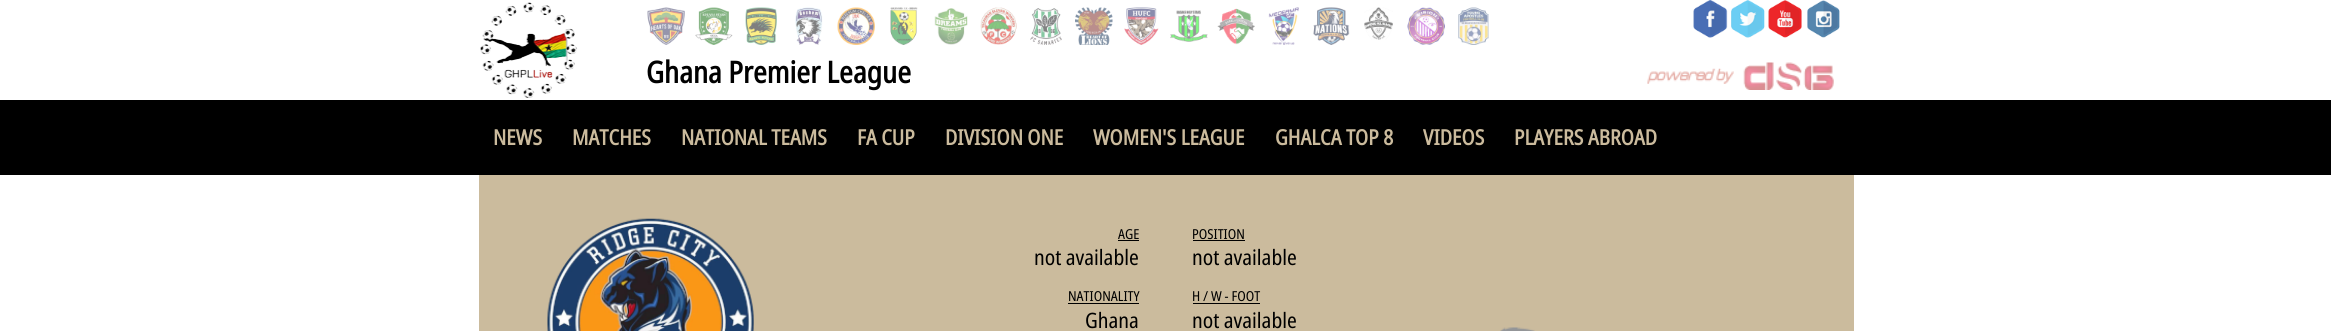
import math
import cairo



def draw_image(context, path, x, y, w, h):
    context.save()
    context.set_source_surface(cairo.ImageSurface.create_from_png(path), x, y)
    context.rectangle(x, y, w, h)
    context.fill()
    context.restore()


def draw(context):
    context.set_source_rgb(1, 1, 1)
    context.paint()
    draw_image(context, "images/1.png", 480, 2, 98, 96)
    draw_image(context, "images/2.png", 647, 7, 38, 38)
    draw_image(context, "images/3.png", 695, 7, 38, 38)
    draw_image(context, "images/4.png", 745, 7, 32, 38)
    draw_image(context, "images/5.png", 795, 7, 28, 38)
    draw_image(context, "images/6.png", 837, 7, 38, 38)
    draw_image(context, "images/7.png", 890, 7, 28, 38)
    draw_image(context, "images/8.png", 934, 8, 34, 37)
    draw_image(context, "images/9.png", 980, 7, 37, 38)
    draw_image(context, "images/10.png", 1030, 8, 32, 37)
    draw_image(context, "images/11.png", 1075, 7, 38, 38)
    draw_image(context, "images/12.png", 1124, 7, 35, 38)
    draw_image(context, "images/13.png", 1170, 10, 38, 32)
    draw_image(context, "images/14.png", 1217, 8, 38, 37)
    draw_image(context, "images/15.png", 1268, 7, 31, 38)
    draw_image(context, "images/16.png", 1313, 7, 37, 38)
    draw_image(context, "images/17.png", 1364, 7, 29, 33)
    draw_image(context, "images/18.png", 1407, 7, 38, 38)
    draw_image(context, "images/19.png", 1458, 7, 31, 38)
    draw_image(context, "images/20.png", 1693, 0, 35, 38)
    draw_image(context, "images/21.png", 1731, 0, 34, 38)
    draw_image(context, "images/22.png", 1768, 0, 34, 38)
    draw_image(context, "images/23.png", 1807, 0, 33, 38)
    draw_image(context, "images/24.png", 1647, 62, 187, 28)
    context.set_source_rgb(0, 0, 0)
    context.rectangle(0, 100, 2331, 75)
    context.fill()
    context.set_source_rgb(203 / 255, 187 / 255, 157 / 255)
    context.rectangle(479, 175, 1375, 156)
    context.fill()
    draw_image(context, "images/25.png", 547, 218, 207, 113)
    context.set_source_rgb(0, 0, 0)
    context.rectangle(1118, 240, 21, 1)
    context.fill()
    context.rectangle(1068, 303, 71, 1)
    context.fill()
    context.rectangle(1193, 240, 52, 1)
    context.fill()
    context.rectangle(1193, 303, 67, 1)
    context.fill()
    draw_image(context, "images/26.png", 1500, 327, 35, 4)
    context.select_font_face("Noto Sans", cairo.FontSlant.NORMAL, cairo.FontWeight.BOLD)
    context.set_font_size(30)
    context.move_to(646, 83)
    context.show_text("Ghana Premier League")
    context.set_font_size(21.25)
    context.set_source_rgb(203 / 255, 187 / 255, 157 / 255)
    context.move_to(493, 145)
    context.show_text("NEWS")
    context.move_to(572, 145)
    context.show_text("MATCHES")
    context.move_to(681, 145)
    context.show_text("NATIONAL TEAMS")
    context.move_to(857, 145)
    context.show_text("FA CUP")
    context.move_to(945, 145)
    context.show_text("DIVISION ONE")
    context.move_to(1093, 145)
    context.show_text("WOMEN'S LEAGUE")
    context.move_to(1275, 145)
    context.show_text("GHALCA TOP 8")
    context.move_to(1423, 145)
    context.show_text("VIDEOS")
    context.move_to(1514, 145)
    context.show_text("PLAYERS ABROAD")
    context.select_font_face("Noto Sans")
    context.set_font_size(13.75)
    context.set_source_rgb(0, 0, 0)
    context.move_to(1118, 239)
    context.show_text("AGE")
    context.set_font_size(21.25)
    context.move_to(1034, 265)
    context.show_text("not available")
    context.set_font_size(13.75)
    context.move_to(1068, 301)
    context.show_text("NATIONALITY")
    context.set_font_size(21.25)
    context.move_to(1085, 328)
    context.show_text("Ghana")
    context.set_font_size(13.75)
    context.move_to(1192, 239)
    context.show_text("POSITION")
    context.set_font_size(21.25)
    context.move_to(1192, 265)
    context.show_text("not available")
    context.set_font_size(13.75)
    context.move_to(1192, 301)
    context.show_text("H / W - FOOT")
    context.set_font_size(21.25)
    context.move_to(1192, 328)
    context.show_text("not available")


surface = cairo.ImageSurface(cairo.Format.RGB24, 2331, 331)
context = cairo.Context(surface)
options = cairo.FontOptions()
options.set_hint_metrics(cairo.HintMetrics.OFF)
options.set_hint_style(cairo.HintStyle.NONE)
context.set_font_options(options)
context.set_miter_limit(4)
draw(context)
surface.write_to_png("out.png")
